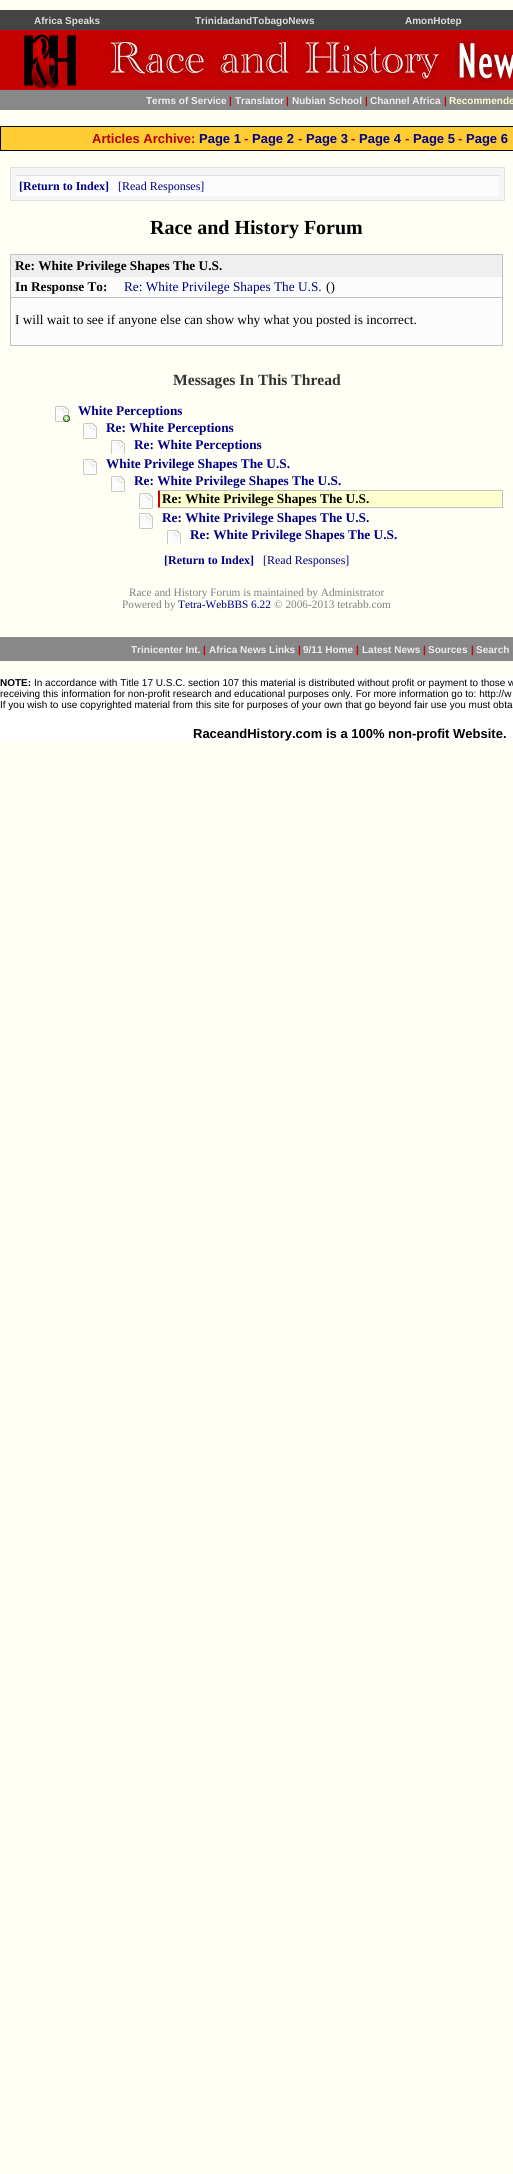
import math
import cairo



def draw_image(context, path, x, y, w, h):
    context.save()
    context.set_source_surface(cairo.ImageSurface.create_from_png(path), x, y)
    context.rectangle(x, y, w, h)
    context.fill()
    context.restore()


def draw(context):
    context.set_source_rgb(1, 1, 246 / 255)
    context.paint()
    context.set_source_rgb(68 / 255, 68 / 255, 68 / 255)
    context.rectangle(0, 10, 513, 20)
    context.fill()
    context.set_source_rgb(197 / 255, 0, 1 / 255)
    context.rectangle(0, 30, 513, 60)
    context.fill()
    draw_image(context, "images/1.png", 24, 34, 52, 54)
    draw_image(context, "images/2.png", 109, 36, 332, 47)
    draw_image(context, "images/3.png", 450, 37, 63, 49)
    context.set_source_rgb(136 / 255, 136 / 255, 136 / 255)
    context.rectangle(0, 90, 513, 20)
    context.fill()
    context.set_source_rgb(0, 0, 0)
    context.rectangle(0, 126, 513, 25)
    context.fill()
    context.set_source_rgb(1, 204 / 255, 51 / 255)
    context.rectangle(1, 127, 512, 23)
    context.fill()
    context.set_source_rgb(245 / 255, 245 / 255, 245 / 255)
    context.rectangle(10.5, 167.5, 494, 33)
    context.fill_preserve()
    context.set_source_rgb(223 / 255, 223 / 255, 223 / 255)
    context.set_line_width(1)
    context.stroke()
    context.set_source_rgb(252 / 255, 252 / 255, 252 / 255)
    context.rectangle(16, 176, 483, 20)
    context.fill()
    context.set_source_rgb(223 / 255, 223 / 255, 223 / 255)
    context.rectangle(16, 175, 483, 1)
    context.fill()
    context.set_source_rgb(252 / 255, 252 / 255, 252 / 255)
    context.rectangle(11, 277, 491, 68)
    context.fill()
    context.rectangle(10.5, 254.5, 492, 91)
    context.set_source_rgb(192 / 255, 192 / 255, 192 / 255)
    context.stroke()
    context.set_source_rgb(239 / 255, 239 / 255, 239 / 255)
    context.rectangle(11, 255, 491, 22)
    context.fill()
    context.set_source_rgb(192 / 255, 192 / 255, 192 / 255)
    context.rectangle(11, 297, 491, 1)
    context.fill()
    draw_image(context, "images/4.png", 55, 406, 15, 16)
    draw_image(context, "images/5.png", 83, 423, 14, 16)
    draw_image(context, "images/6.png", 111, 440, 14, 14)
    draw_image(context, "images/5.png", 83, 459, 14, 16)
    draw_image(context, "images/5.png", 111, 476, 14, 16)
    draw_image(context, "images/5.png", 139, 493, 14, 16)
    context.set_source_rgb(252 / 255, 1, 205 / 255)
    context.rectangle(160, 491, 342, 16)
    context.fill()
    context.set_source_rgb(192 / 255, 192 / 255, 192 / 255)
    context.new_path()
    context.move_to(158, 490)
    context.line_to(503, 490)
    context.line_to(502, 491)
    context.line_to(160, 491)
    context.close_path()
    context.fill()
    context.rectangle(502, 490, 1, 18)
    context.fill()
    context.new_path()
    context.move_to(503, 508)
    context.line_to(158, 508)
    context.line_to(160, 507)
    context.line_to(502, 507)
    context.close_path()
    context.fill()
    context.set_source_rgb(204 / 255, 0, 0)
    context.new_path()
    context.move_to(158, 508)
    context.line_to(158, 490)
    context.line_to(160, 491)
    context.line_to(160, 507)
    context.close_path()
    context.fill()
    draw_image(context, "images/5.png", 139, 513, 14, 16)
    draw_image(context, "images/6.png", 167, 530, 14, 14)
    context.set_source_rgb(136 / 255, 136 / 255, 136 / 255)
    context.rectangle(0, 637, 513, 24)
    context.fill()
    context.set_source_rgb(1, 1, 1)
    context.rectangle(0, 677, 513, 64)
    context.fill()
    context.select_font_face("Liberation Sans", cairo.FontSlant.NORMAL, cairo.FontWeight.BOLD)
    context.set_font_size(10)
    context.set_source_rgb(221 / 255, 221 / 255, 221 / 255)
    context.move_to(34, 24)
    context.show_text("Africa Speaks")
    context.move_to(195, 24)
    context.show_text("TrinidadandTobagoNews")
    context.move_to(405, 24)
    context.show_text("AmonHotep")
    context.set_source_rgb(238 / 255, 238 / 255, 238 / 255)
    context.move_to(146, 104)
    context.show_text("Terms of Service")
    context.set_source_rgb(193 / 255, 0, 0)
    context.move_to(229, 104)
    context.show_text("|")
    context.set_source_rgb(238 / 255, 238 / 255, 238 / 255)
    context.move_to(235, 104)
    context.show_text("Translator")
    context.set_source_rgb(193 / 255, 0, 0)
    context.move_to(286, 104)
    context.show_text("|")
    context.set_source_rgb(238 / 255, 238 / 255, 238 / 255)
    context.move_to(292, 104)
    context.show_text("Nubian School")
    context.set_source_rgb(193 / 255, 0, 0)
    context.move_to(365, 104)
    context.show_text("|")
    context.set_source_rgb(238 / 255, 238 / 255, 238 / 255)
    context.move_to(370, 104)
    context.show_text("Channel Africa")
    context.set_source_rgb(193 / 255, 0, 0)
    context.move_to(444, 104)
    context.show_text("|")
    context.set_source_rgb(1, 1, 204 / 255)
    context.move_to(449, 104)
    context.show_text("Recommende")
    context.set_font_size(13)
    context.set_source_rgb(181 / 255, 0, 0)
    context.move_to(92, 143)
    context.show_text("Articles Archive:")
    context.set_source_rgb(0, 0, 134 / 255)
    context.move_to(199, 143)
    context.show_text("Page 1")
    context.set_source_rgb(181 / 255, 0, 0)
    context.move_to(244, 143)
    context.show_text("-")
    context.set_source_rgb(0, 0, 134 / 255)
    context.move_to(252, 143)
    context.show_text("Page 2")
    context.set_source_rgb(181 / 255, 0, 0)
    context.move_to(298, 143)
    context.show_text("-")
    context.set_source_rgb(0, 0, 134 / 255)
    context.move_to(306, 143)
    context.show_text("Page 3")
    context.set_source_rgb(181 / 255, 0, 0)
    context.move_to(351, 143)
    context.show_text("-")
    context.set_source_rgb(0, 0, 134 / 255)
    context.move_to(359, 143)
    context.show_text("Page 4")
    context.set_source_rgb(181 / 255, 0, 0)
    context.move_to(405, 143)
    context.show_text("-")
    context.set_source_rgb(0, 0, 134 / 255)
    context.move_to(413, 143)
    context.show_text("Page 5")
    context.set_source_rgb(181 / 255, 0, 0)
    context.move_to(458, 143)
    context.show_text("-")
    context.set_source_rgb(0, 0, 134 / 255)
    context.move_to(466, 143)
    context.show_text("Page 6")
    context.select_font_face("Liberation Serif", cairo.FontSlant.NORMAL, cairo.FontWeight.BOLD)
    context.set_font_size(12)
    context.move_to(19, 190)
    context.show_text("[Return to Index]")
    context.select_font_face("Liberation Serif")
    context.move_to(118, 190)
    context.show_text("[Read Responses]")
    context.select_font_face("Liberation Serif", cairo.FontSlant.NORMAL, cairo.FontWeight.BOLD)
    context.set_font_size(20)
    context.set_source_rgb(0, 0, 0)
    context.move_to(150, 234)
    context.show_text("Race and History Forum")
    context.set_font_size(13.3)
    context.move_to(15, 270)
    context.show_text("Re: White Privilege Shapes The U.S.")
    context.move_to(15, 291)
    context.show_text("In Response To:")
    context.select_font_face("Liberation Serif")
    context.set_source_rgb(0, 0, 134 / 255)
    context.move_to(124, 291)
    context.show_text("Re: White Privilege Shapes The U.S.")
    context.set_source_rgb(0, 0, 0)
    context.move_to(326, 291)
    context.show_text("()")
    context.move_to(15, 324)
    context.show_text("I will wait to see if anyone else can show why what you posted is incorrect.")
    context.select_font_face("Liberation Serif", cairo.FontSlant.NORMAL, cairo.FontWeight.BOLD)
    context.set_font_size(15.6)
    context.set_source_rgb(51 / 255, 51 / 255, 51 / 255)
    context.move_to(173, 385)
    context.show_text("Messages In This Thread")
    context.set_font_size(13.3)
    context.set_source_rgb(0, 0, 134 / 255)
    context.move_to(78, 415)
    context.show_text("White Perceptions")
    context.move_to(106, 432)
    context.show_text("Re: White Perceptions")
    context.move_to(134, 449)
    context.show_text("Re: White Perceptions")
    context.move_to(106, 468)
    context.show_text("White Privilege Shapes The U.S.")
    context.move_to(134, 485)
    context.show_text("Re: White Privilege Shapes The U.S.")
    context.set_source_rgb(0, 0, 0)
    context.move_to(162, 503)
    context.show_text("Re: White Privilege Shapes The U.S.")
    context.set_source_rgb(0, 0, 134 / 255)
    context.move_to(162, 522)
    context.show_text("Re: White Privilege Shapes The U.S.")
    context.move_to(190, 539)
    context.show_text("Re: White Privilege Shapes The U.S.")
    context.set_font_size(12)
    context.move_to(164, 564)
    context.show_text("[Return to Index]")
    context.select_font_face("Liberation Serif")
    context.move_to(263, 564)
    context.show_text("[Read Responses]")
    context.set_font_size(11.3)
    context.set_source_rgb(128 / 255, 128 / 255, 128 / 255)
    context.move_to(129, 596)
    context.show_text("Race and History Forum is maintained by Administrator")
    context.move_to(122, 608)
    context.show_text("Powered by")
    context.set_source_rgb(0, 0, 134 / 255)
    context.move_to(178, 608)
    context.show_text("Tetra-WebBBS 6.22")
    context.set_source_rgb(128 / 255, 128 / 255, 128 / 255)
    context.move_to(274, 608)
    context.show_text("© 2006-2013 tetrabb.com")
    context.select_font_face("Liberation Sans", cairo.FontSlant.NORMAL, cairo.FontWeight.BOLD)
    context.set_font_size(10)
    context.set_source_rgb(238 / 255, 238 / 255, 238 / 255)
    context.move_to(131, 653)
    context.show_text("Trinicenter Int.")
    context.set_source_rgb(193 / 255, 0, 0)
    context.move_to(203, 653)
    context.show_text("|")
    context.set_source_rgb(238 / 255, 238 / 255, 238 / 255)
    context.move_to(209, 653)
    context.show_text("Africa News Links")
    context.set_source_rgb(193 / 255, 0, 0)
    context.move_to(298, 653)
    context.show_text("|")
    context.set_source_rgb(238 / 255, 238 / 255, 238 / 255)
    context.move_to(303, 653)
    context.show_text("9/11 Home")
    context.set_source_rgb(193 / 255, 0, 0)
    context.move_to(356, 653)
    context.show_text("|")
    context.set_source_rgb(238 / 255, 238 / 255, 238 / 255)
    context.move_to(362, 653)
    context.show_text("Latest News")
    context.set_source_rgb(193 / 255, 0, 0)
    context.move_to(423, 653)
    context.show_text("|")
    context.set_source_rgb(238 / 255, 238 / 255, 238 / 255)
    context.move_to(428, 653)
    context.show_text("Sources")
    context.set_source_rgb(193 / 255, 0, 0)
    context.move_to(471, 653)
    context.show_text("|")
    context.set_source_rgb(238 / 255, 238 / 255, 238 / 255)
    context.move_to(476, 653)
    context.show_text("Search")
    context.set_source_rgb(0, 0, 0)
    context.move_to(0, 686)
    context.show_text("NOTE:")
    context.select_font_face("Liberation Sans")
    context.move_to(34, 686)
    context.show_text("In accordance with Title 17 U.S.C. section 107 this material is distributed without profit or payment to those w")
    context.move_to(0, 697)
    context.show_text("receiving this information for non-profit research and educational purposes only. For more information go to: http://w")
    context.move_to(0, 708)
    context.show_text("If you wish to use copyrighted material from this site for purposes of your own that go beyond fair use you must obta")
    context.select_font_face("Liberation Sans", cairo.FontSlant.NORMAL, cairo.FontWeight.BOLD)
    context.set_font_size(13)
    context.move_to(193, 738)
    context.show_text("RaceandHistory.com is a 100% non-profit Website.")


surface = cairo.ImageSurface(cairo.Format.RGB24, 513, 2174)
context = cairo.Context(surface)
options = cairo.FontOptions()
options.set_hint_metrics(cairo.HintMetrics.OFF)
options.set_hint_style(cairo.HintStyle.NONE)
context.set_font_options(options)
context.set_miter_limit(4)
draw(context)
surface.write_to_png("out.png")
